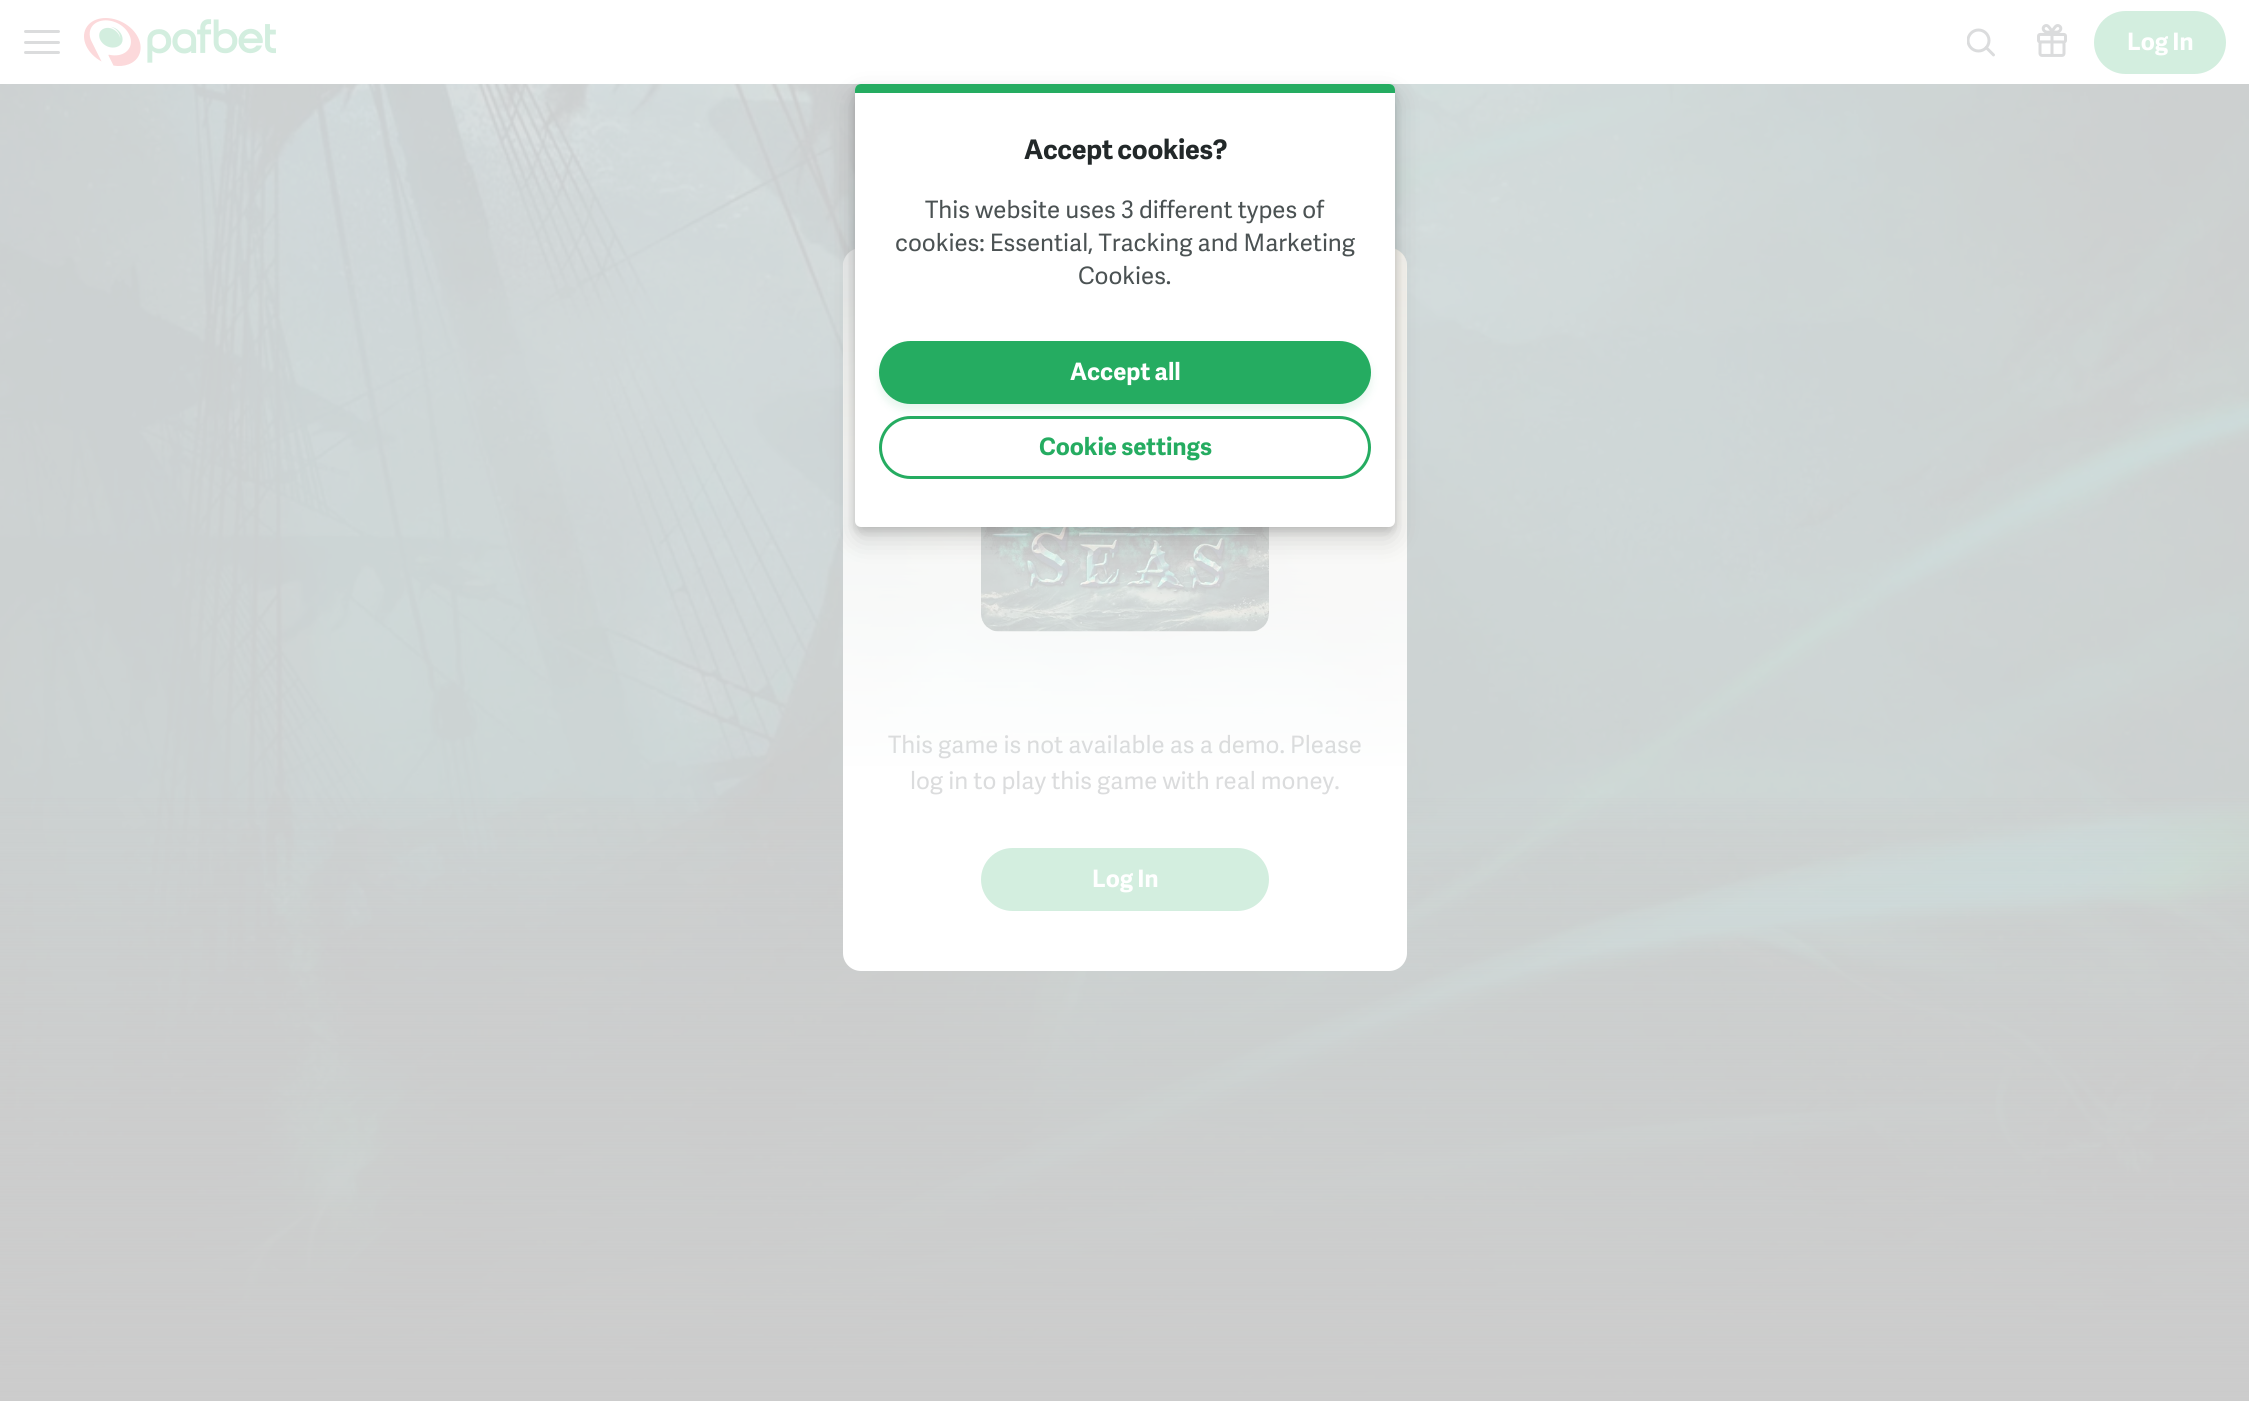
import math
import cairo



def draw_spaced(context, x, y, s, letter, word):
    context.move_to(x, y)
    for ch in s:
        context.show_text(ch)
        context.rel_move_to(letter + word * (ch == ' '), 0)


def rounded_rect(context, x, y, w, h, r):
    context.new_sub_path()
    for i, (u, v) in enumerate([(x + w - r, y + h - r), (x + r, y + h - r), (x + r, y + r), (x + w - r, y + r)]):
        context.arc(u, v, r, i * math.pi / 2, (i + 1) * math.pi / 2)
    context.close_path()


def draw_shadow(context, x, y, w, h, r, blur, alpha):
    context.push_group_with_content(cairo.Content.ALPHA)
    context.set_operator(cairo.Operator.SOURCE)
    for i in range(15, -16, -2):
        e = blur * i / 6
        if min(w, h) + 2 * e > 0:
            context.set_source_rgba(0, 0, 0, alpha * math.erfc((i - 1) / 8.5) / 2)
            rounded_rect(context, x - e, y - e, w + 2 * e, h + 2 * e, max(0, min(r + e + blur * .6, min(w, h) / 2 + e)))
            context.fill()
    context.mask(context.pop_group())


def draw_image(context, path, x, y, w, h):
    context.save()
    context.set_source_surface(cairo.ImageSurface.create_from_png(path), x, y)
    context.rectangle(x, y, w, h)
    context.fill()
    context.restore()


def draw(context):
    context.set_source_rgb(204 / 255, 204 / 255, 204 / 255)
    context.paint()
    context.set_source_rgb(1, 1, 1)
    context.rectangle(0, 0, 2249, 84)
    context.fill()
    context.set_source_rgb(219 / 255, 220 / 255, 221 / 255)
    rounded_rect(context, 24, 30, 36, 3, 1.5)
    context.fill()
    rounded_rect(context, 24, 41, 36, 3, 1.5)
    context.fill()
    rounded_rect(context, 24, 51, 36, 3, 1.5)
    context.fill()
    draw_image(context, "images/1.png", 84, 18, 192, 48)
    draw_image(context, "images/2.png", 1967, 28, 28, 29)
    draw_image(context, "images/3.png", 2037, 24, 30, 33)
    context.set_source_rgb(211 / 255, 238 / 255, 223 / 255)
    rounded_rect(context, 2094, 11, 132, 63, 31.5)
    context.fill()
    draw_image(context, "images/4.png", 0, 84, 2249, 1313)
    gradient = cairo.LinearGradient(1125, 1401, 1125, 701)
    gradient.add_color_stop_rgba(0, 204 / 255, 204 / 255, 204 / 255, 1)
    gradient.add_color_stop_rgba(1, 204 / 255, 204 / 255, 204 / 255, 0)
    context.set_source(gradient)
    context.rectangle(0, 798, 2249, 599)
    context.fill()
    context.set_source_rgb(1, 1, 1)
    rounded_rect(context, 843, 248, 564, 723, 18)
    context.fill()
    context.set_source_rgb(211 / 255, 238 / 255, 223 / 255)
    rounded_rect(context, 981, 848, 288, 63, 31.5)
    context.fill()
    context.select_font_face("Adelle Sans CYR", cairo.FontSlant.NORMAL, cairo.FontWeight.BOLD)
    context.set_font_size(24)
    context.set_source_rgb(1, 1, 1)
    context.move_to(2127, 50)
    context.show_text("Log In")
    context.select_font_face("Adelle Sans CYR")
    context.set_source_rgb(219 / 255, 220 / 255, 221 / 255)
    context.move_to(888, 753)
    context.show_text("This game is not available as a demo. Please")
    draw_image(context, "images/5.png", 843, 248, 564, 518)
    draw_image(context, "images/6.png", 981, 527, 288, 105)
    context.move_to(910, 789)
    context.show_text("log in to play this game with real money.")
    context.select_font_face("Adelle Sans CYR", cairo.FontSlant.NORMAL, cairo.FontWeight.BOLD)
    context.set_source_rgb(1, 1, 1)
    context.move_to(1092, 887)
    context.show_text("Log In")
    context.set_source_rgb(0, 0, 0)
    draw_shadow(context, 855, 89, 540, 442, 6, 4.5, 0.15)
    draw_shadow(context, 855, 96, 540, 443, 6, 13.5, 0.15)
    context.set_source_rgb(1, 1, 1)
    rounded_rect(context, 855, 84, 540, 443, 6)
    context.fill()
    context.set_source_rgb(37 / 255, 172 / 255, 97 / 255)
    context.new_path()
    context.move_to(861, 84)
    context.line_to(1389, 84)
    context.curve_to(1392.5, 84, 1395, 86.5, 1395, 90)
    context.line_to(1395, 93)
    context.line_to(855, 93)
    context.line_to(855, 90)
    context.curve_to(855, 86.5, 857.5, 84, 861, 84)
    context.close_path()
    context.fill()
    context.set_font_size(27)
    context.set_source_rgb(34 / 255, 40 / 255, 41 / 255)
    draw_spaced(context, 1024, 159, "Accept cookies?", -0.25, 0)
    context.select_font_face("Adelle Sans CYR")
    context.set_font_size(24)
    context.set_source_rgb(75 / 255, 82 / 255, 83 / 255)
    context.move_to(925, 218)
    context.show_text("This website uses 3 different types of")
    context.move_to(895, 251)
    context.show_text("cookies: Essential, Tracking and Marketing")
    context.move_to(1078, 284)
    context.show_text("Cookies.")
    context.set_source_rgb(37 / 255, 172 / 255, 97 / 255)
    draw_shadow(context, 879, 347, 492, 63, 31.5, 4.5, 0.12)
    context.set_source_rgb(37 / 255, 172 / 255, 97 / 255)
    rounded_rect(context, 879, 341, 492, 63, 31.5)
    context.fill()
    context.select_font_face("Adelle Sans CYR", cairo.FontSlant.NORMAL, cairo.FontWeight.BOLD)
    context.set_source_rgb(1, 1, 1)
    context.move_to(1070, 380)
    context.show_text("Accept all")
    rounded_rect(context, 880.5, 417.5, 489, 60, 30)
    context.set_source_rgb(37 / 255, 172 / 255, 97 / 255)
    context.set_line_width(3)
    context.stroke()
    context.move_to(1039, 455)
    context.show_text("Cookie settings")


surface = cairo.ImageSurface(cairo.Format.RGB24, 2249, 1401)
context = cairo.Context(surface)
options = cairo.FontOptions()
options.set_hint_metrics(cairo.HintMetrics.OFF)
options.set_hint_style(cairo.HintStyle.NONE)
context.set_font_options(options)
context.set_miter_limit(4)
draw(context)
surface.write_to_png("out.png")
